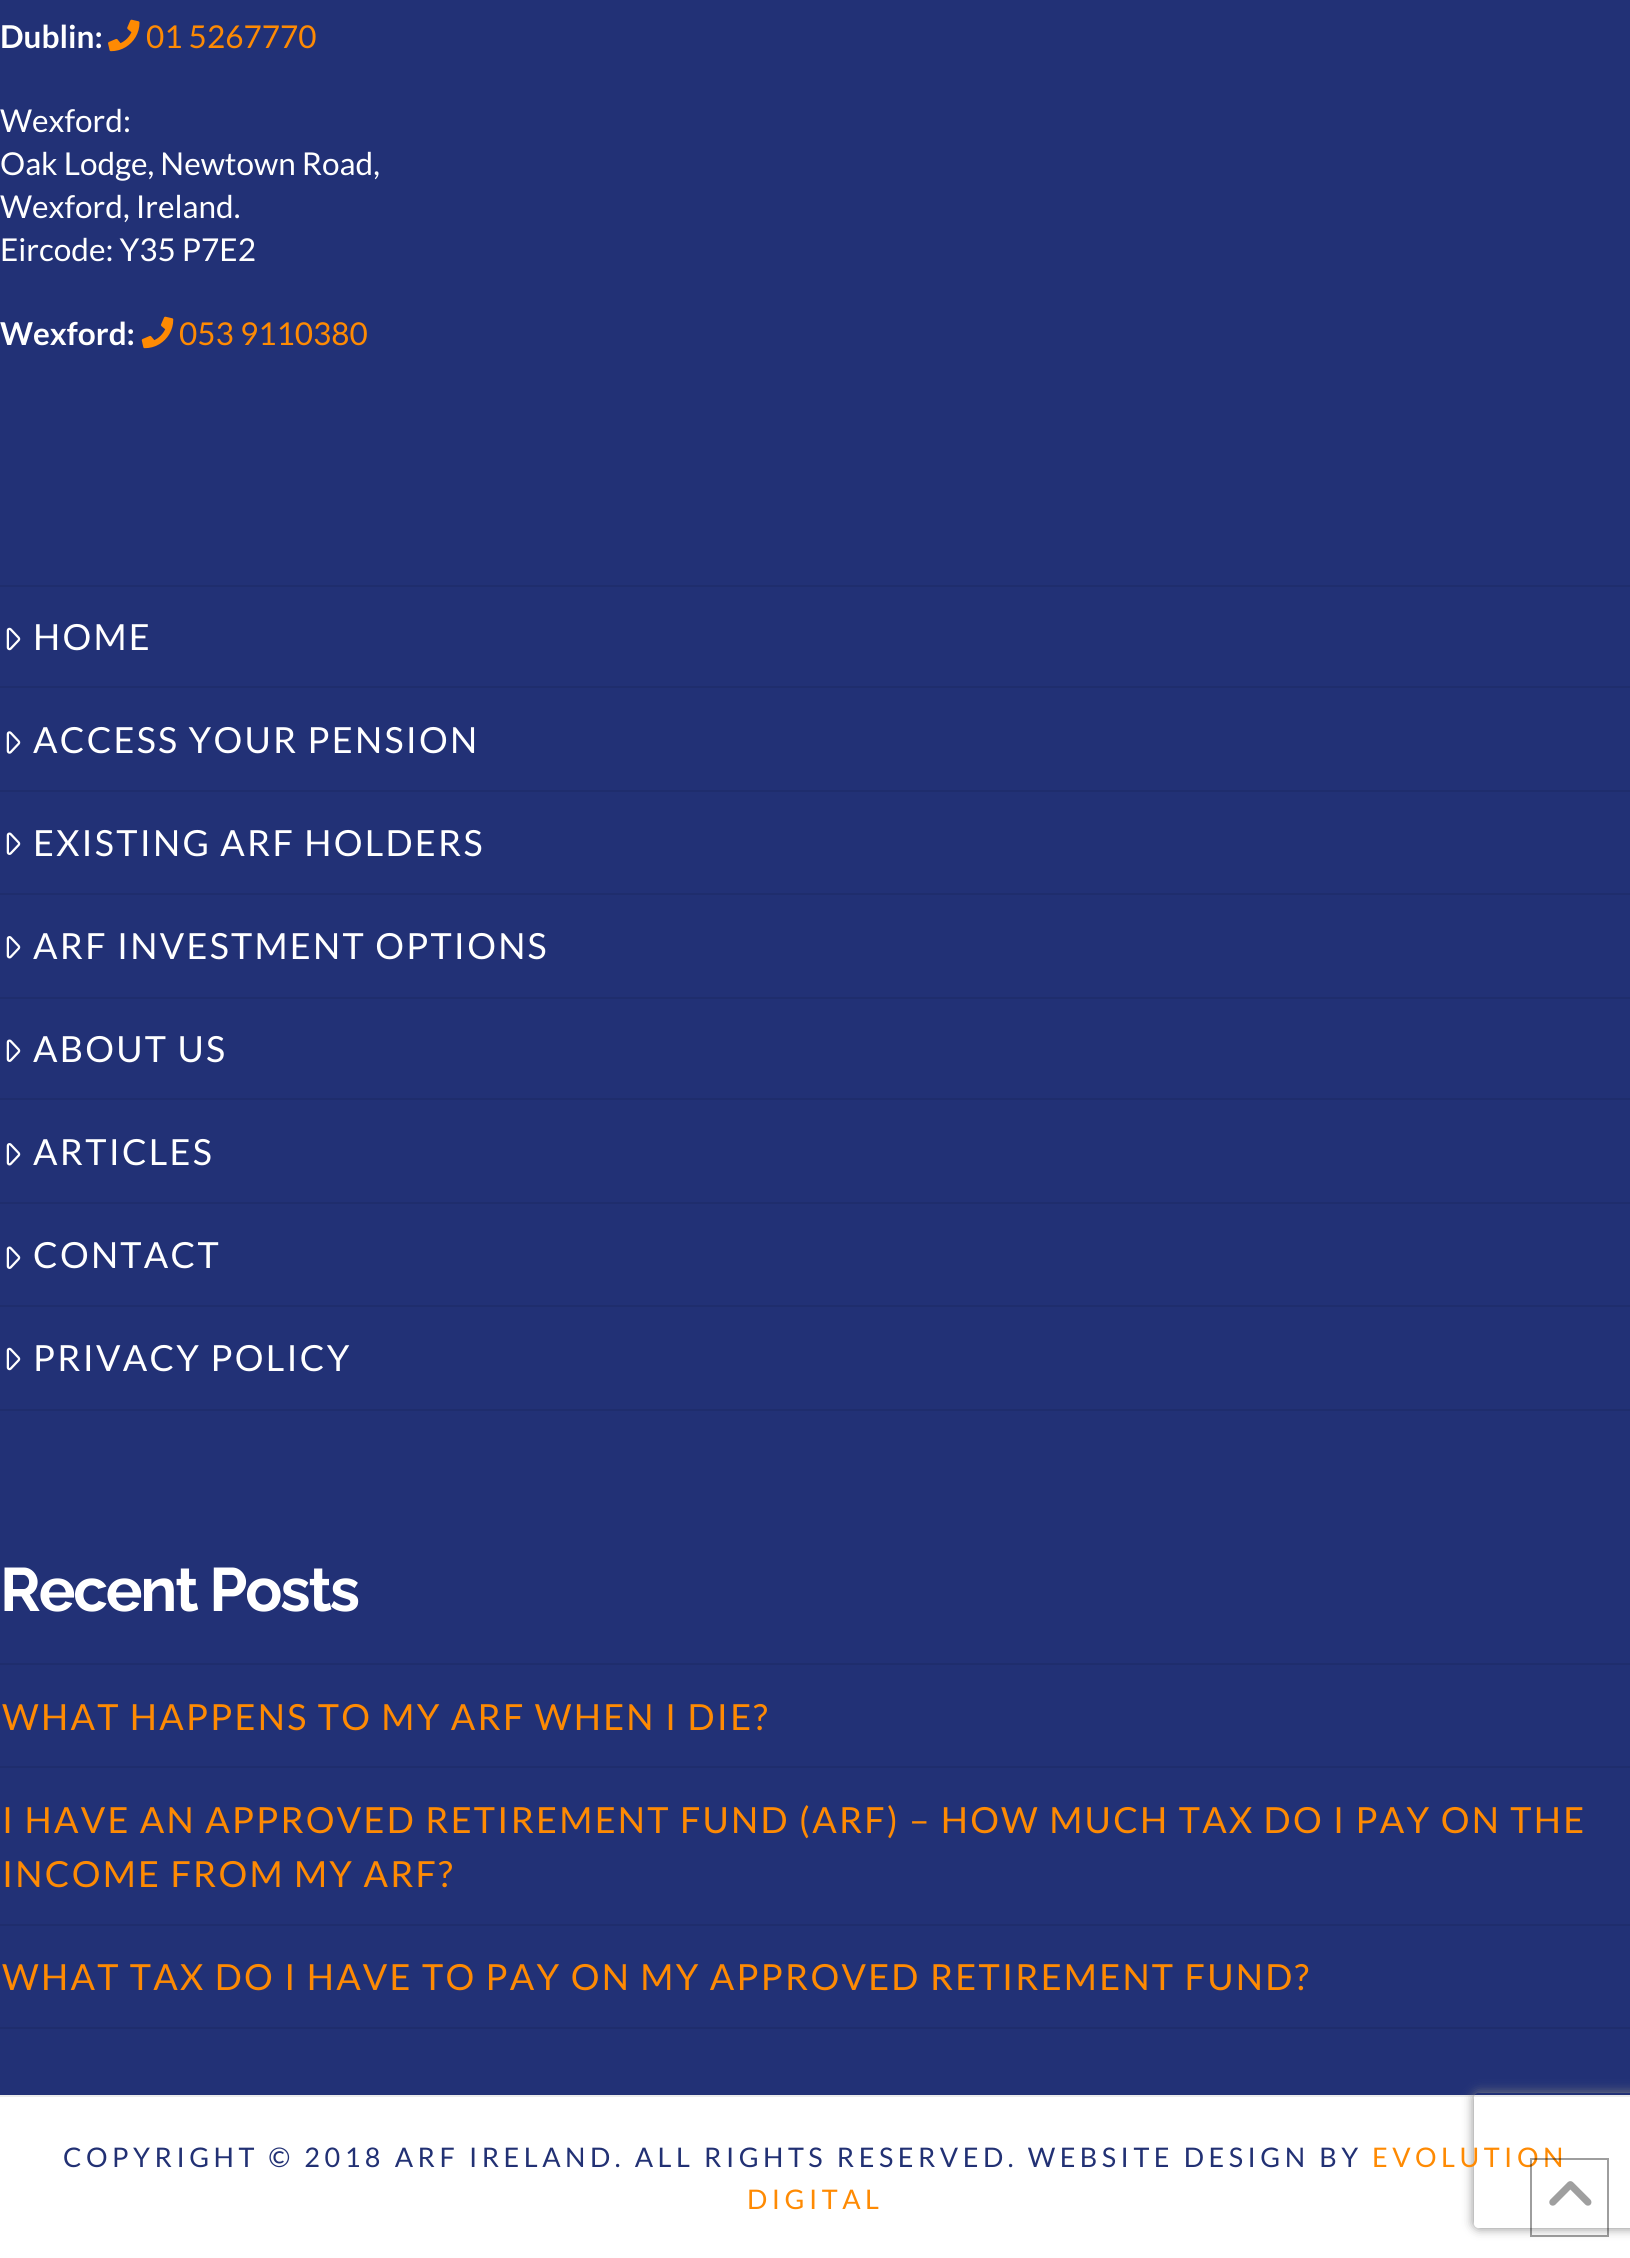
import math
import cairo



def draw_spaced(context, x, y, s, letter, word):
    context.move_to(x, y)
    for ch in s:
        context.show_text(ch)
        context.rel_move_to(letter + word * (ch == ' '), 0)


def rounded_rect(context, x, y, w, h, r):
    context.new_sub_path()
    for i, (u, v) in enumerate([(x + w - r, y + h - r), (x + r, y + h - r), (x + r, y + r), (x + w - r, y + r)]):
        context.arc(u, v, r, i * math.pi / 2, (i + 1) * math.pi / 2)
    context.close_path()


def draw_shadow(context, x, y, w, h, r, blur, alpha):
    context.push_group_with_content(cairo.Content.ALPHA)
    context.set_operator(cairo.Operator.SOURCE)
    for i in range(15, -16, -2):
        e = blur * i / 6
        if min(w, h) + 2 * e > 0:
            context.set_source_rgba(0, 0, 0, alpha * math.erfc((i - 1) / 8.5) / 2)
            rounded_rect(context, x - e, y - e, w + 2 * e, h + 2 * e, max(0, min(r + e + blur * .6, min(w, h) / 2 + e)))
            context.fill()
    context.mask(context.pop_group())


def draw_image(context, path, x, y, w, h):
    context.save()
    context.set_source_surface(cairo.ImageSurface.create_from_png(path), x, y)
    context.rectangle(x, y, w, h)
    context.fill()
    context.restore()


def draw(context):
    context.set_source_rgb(1, 1, 1)
    context.paint()
    context.set_source_rgb(34 / 255, 49 / 255, 118 / 255)
    context.rectangle(0, 0, 1630, 2095)
    context.fill()
    draw_image(context, "images/1.png", 108, 19, 32, 33)
    draw_image(context, "images/2.png", 141, 316, 33, 33)
    context.set_source_rgb(31 / 255, 45 / 255, 109 / 255)
    context.rectangle(0, 1409, 1630, 2)
    context.fill()
    context.rectangle(0, 585, 1630, 2)
    context.fill()
    draw_image(context, "images/3.png", 6, 627, 15, 24)
    context.rectangle(0, 686, 1630, 2)
    context.fill()
    draw_image(context, "images/4.png", 6, 731, 15, 23)
    context.rectangle(0, 790, 1630, 2)
    context.fill()
    draw_image(context, "images/5.png", 6, 832, 15, 23)
    context.rectangle(0, 893, 1630, 2)
    context.fill()
    draw_image(context, "images/6.png", 6, 936, 15, 23)
    context.rectangle(0, 997, 1630, 2)
    context.fill()
    draw_image(context, "images/5.png", 6, 1039, 15, 23)
    context.rectangle(0, 1098, 1630, 2)
    context.fill()
    draw_image(context, "images/6.png", 6, 1143, 15, 23)
    context.rectangle(0, 1202, 1630, 2)
    context.fill()
    draw_image(context, "images/5.png", 6, 1246, 15, 23)
    context.rectangle(0, 1305, 1630, 2)
    context.fill()
    draw_image(context, "images/3.png", 6, 1347, 15, 24)
    context.rectangle(0, 1663, 1630, 2)
    context.fill()
    context.rectangle(0, 1766, 1630, 2)
    context.fill()
    context.rectangle(0, 1924, 1630, 2)
    context.fill()
    context.rectangle(0, 2027, 1630, 2)
    context.fill()
    context.set_source_rgb(236 / 255, 236 / 255, 236 / 255)
    context.rectangle(0, 2095, 1630, 2)
    context.fill()
    context.save()
    context.set_fill_rule(cairo.FillRule.EVEN_ODD)
    context.new_path()
    context.move_to(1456, 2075)
    context.line_to(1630, 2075)
    context.line_to(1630, 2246)
    context.line_to(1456, 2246)
    context.close_path()
    context.move_to(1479, 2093)
    context.line_to(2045, 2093)
    context.curve_to(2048, 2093, 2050, 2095, 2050, 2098)
    context.line_to(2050, 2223)
    context.curve_to(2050, 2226, 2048, 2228, 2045, 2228)
    context.line_to(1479, 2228)
    context.curve_to(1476, 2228, 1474, 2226, 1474, 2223)
    context.line_to(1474, 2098)
    context.curve_to(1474, 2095, 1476, 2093, 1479, 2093)
    context.close_path()
    context.clip()
    context.set_source_rgb(128 / 255, 128 / 255, 128 / 255)
    draw_shadow(context, 1474, 2093, 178, 135, 5, 5.5, 1)
    context.restore()
    context.select_font_face("Lato", cairo.FontSlant.NORMAL, cairo.FontWeight.BOLD)
    context.set_font_size(31.5)
    context.set_source_rgb(1, 1, 1)
    context.move_to(0, 48)
    context.show_text("Dublin:")
    context.select_font_face("Lato")
    context.set_source_rgb(254 / 255, 138 / 255, 3 / 255)
    context.move_to(146, 48)
    context.show_text("01 5267770")
    context.set_source_rgb(1, 1, 1)
    context.move_to(0, 132)
    context.show_text("Wexford:")
    context.move_to(0, 175)
    context.show_text("Oak Lodge, Newtown Road,")
    context.move_to(0, 218)
    context.show_text("Wexford, Ireland.")
    context.move_to(0, 261)
    context.show_text("Eircode: Y35 P7E2")
    context.select_font_face("Lato", cairo.FontSlant.NORMAL, cairo.FontWeight.BOLD)
    context.move_to(0, 345)
    context.show_text("Wexford:")
    context.select_font_face("Lato")
    context.set_source_rgb(254 / 255, 138 / 255, 3 / 255)
    context.move_to(179, 345)
    context.show_text("053 9110380")
    context.set_font_size(36)
    context.set_source_rgb(1, 1, 1)
    draw_spaced(context, 33, 650, "HOME", 2.25, 0)
    draw_spaced(context, 33, 753, "ACCESS YOUR PENSION", 2.25, 0)
    draw_spaced(context, 33, 856, "EXISTING ARF HOLDERS", 2.25, 0)
    draw_spaced(context, 33, 959, "ARF INVESTMENT OPTIONS", 2.25, 0)
    draw_spaced(context, 33, 1062, "ABOUT US", 2.25, 0)
    draw_spaced(context, 33, 1165, "ARTICLES", 2.25, 0)
    draw_spaced(context, 33, 1268, "CONTACT", 2.25, 0)
    draw_spaced(context, 33, 1371, "PRIVACY POLICY", 2.25, 0)
    context.select_font_face("Raleway Thin")
    context.set_font_size(61.25)
    draw_spaced(context, 0, 1611, "Recent Posts", -2.1, 0)
    context.select_font_face("Lato")
    context.set_font_size(36)
    context.set_source_rgb(254 / 255, 138 / 255, 3 / 255)
    draw_spaced(context, 2, 1730, "WHAT HAPPENS TO MY ARF WHEN I DIE?", 2.25, 0)
    draw_spaced(context, 2, 1833, "I HAVE AN APPROVED RETIREMENT FUND (ARF) – HOW MUCH TAX DO I PAY ON THE", 2.25, 0)
    draw_spaced(context, 2, 1887, "INCOME FROM MY ARF?", 2.25, 0)
    draw_spaced(context, 2, 1990, "WHAT TAX DO I HAVE TO PAY ON MY APPROVED RETIREMENT FUND?", 2.25, 0)
    context.set_font_size(27)
    context.set_source_rgb(34 / 255, 49 / 255, 116 / 255)
    draw_spaced(context, 63, 2167, "COPYRIGHT © 2018 ARF IRELAND. ALL RIGHTS RESERVED. WEBSITE DESIGN BY", 4.5, 0)
    context.set_source_rgb(254 / 255, 138 / 255, 3 / 255)
    draw_spaced(context, 1372, 2167, "EVOLUTION", 4.5, 0)
    draw_spaced(context, 747, 2209, "DIGITAL", 4.5, 0)
    context.rectangle(1531, 2159, 77, 77)
    context.set_source_rgba(0, 0, 0, 0.38)
    context.stroke()
    draw_image(context, "images/7.png", 1549, 2181, 43, 25)


surface = cairo.ImageSurface(cairo.Format.RGB24, 1630, 2258)
context = cairo.Context(surface)
options = cairo.FontOptions()
options.set_hint_metrics(cairo.HintMetrics.OFF)
options.set_hint_style(cairo.HintStyle.NONE)
context.set_font_options(options)
context.set_miter_limit(4)
draw(context)
surface.write_to_png("out.png")
